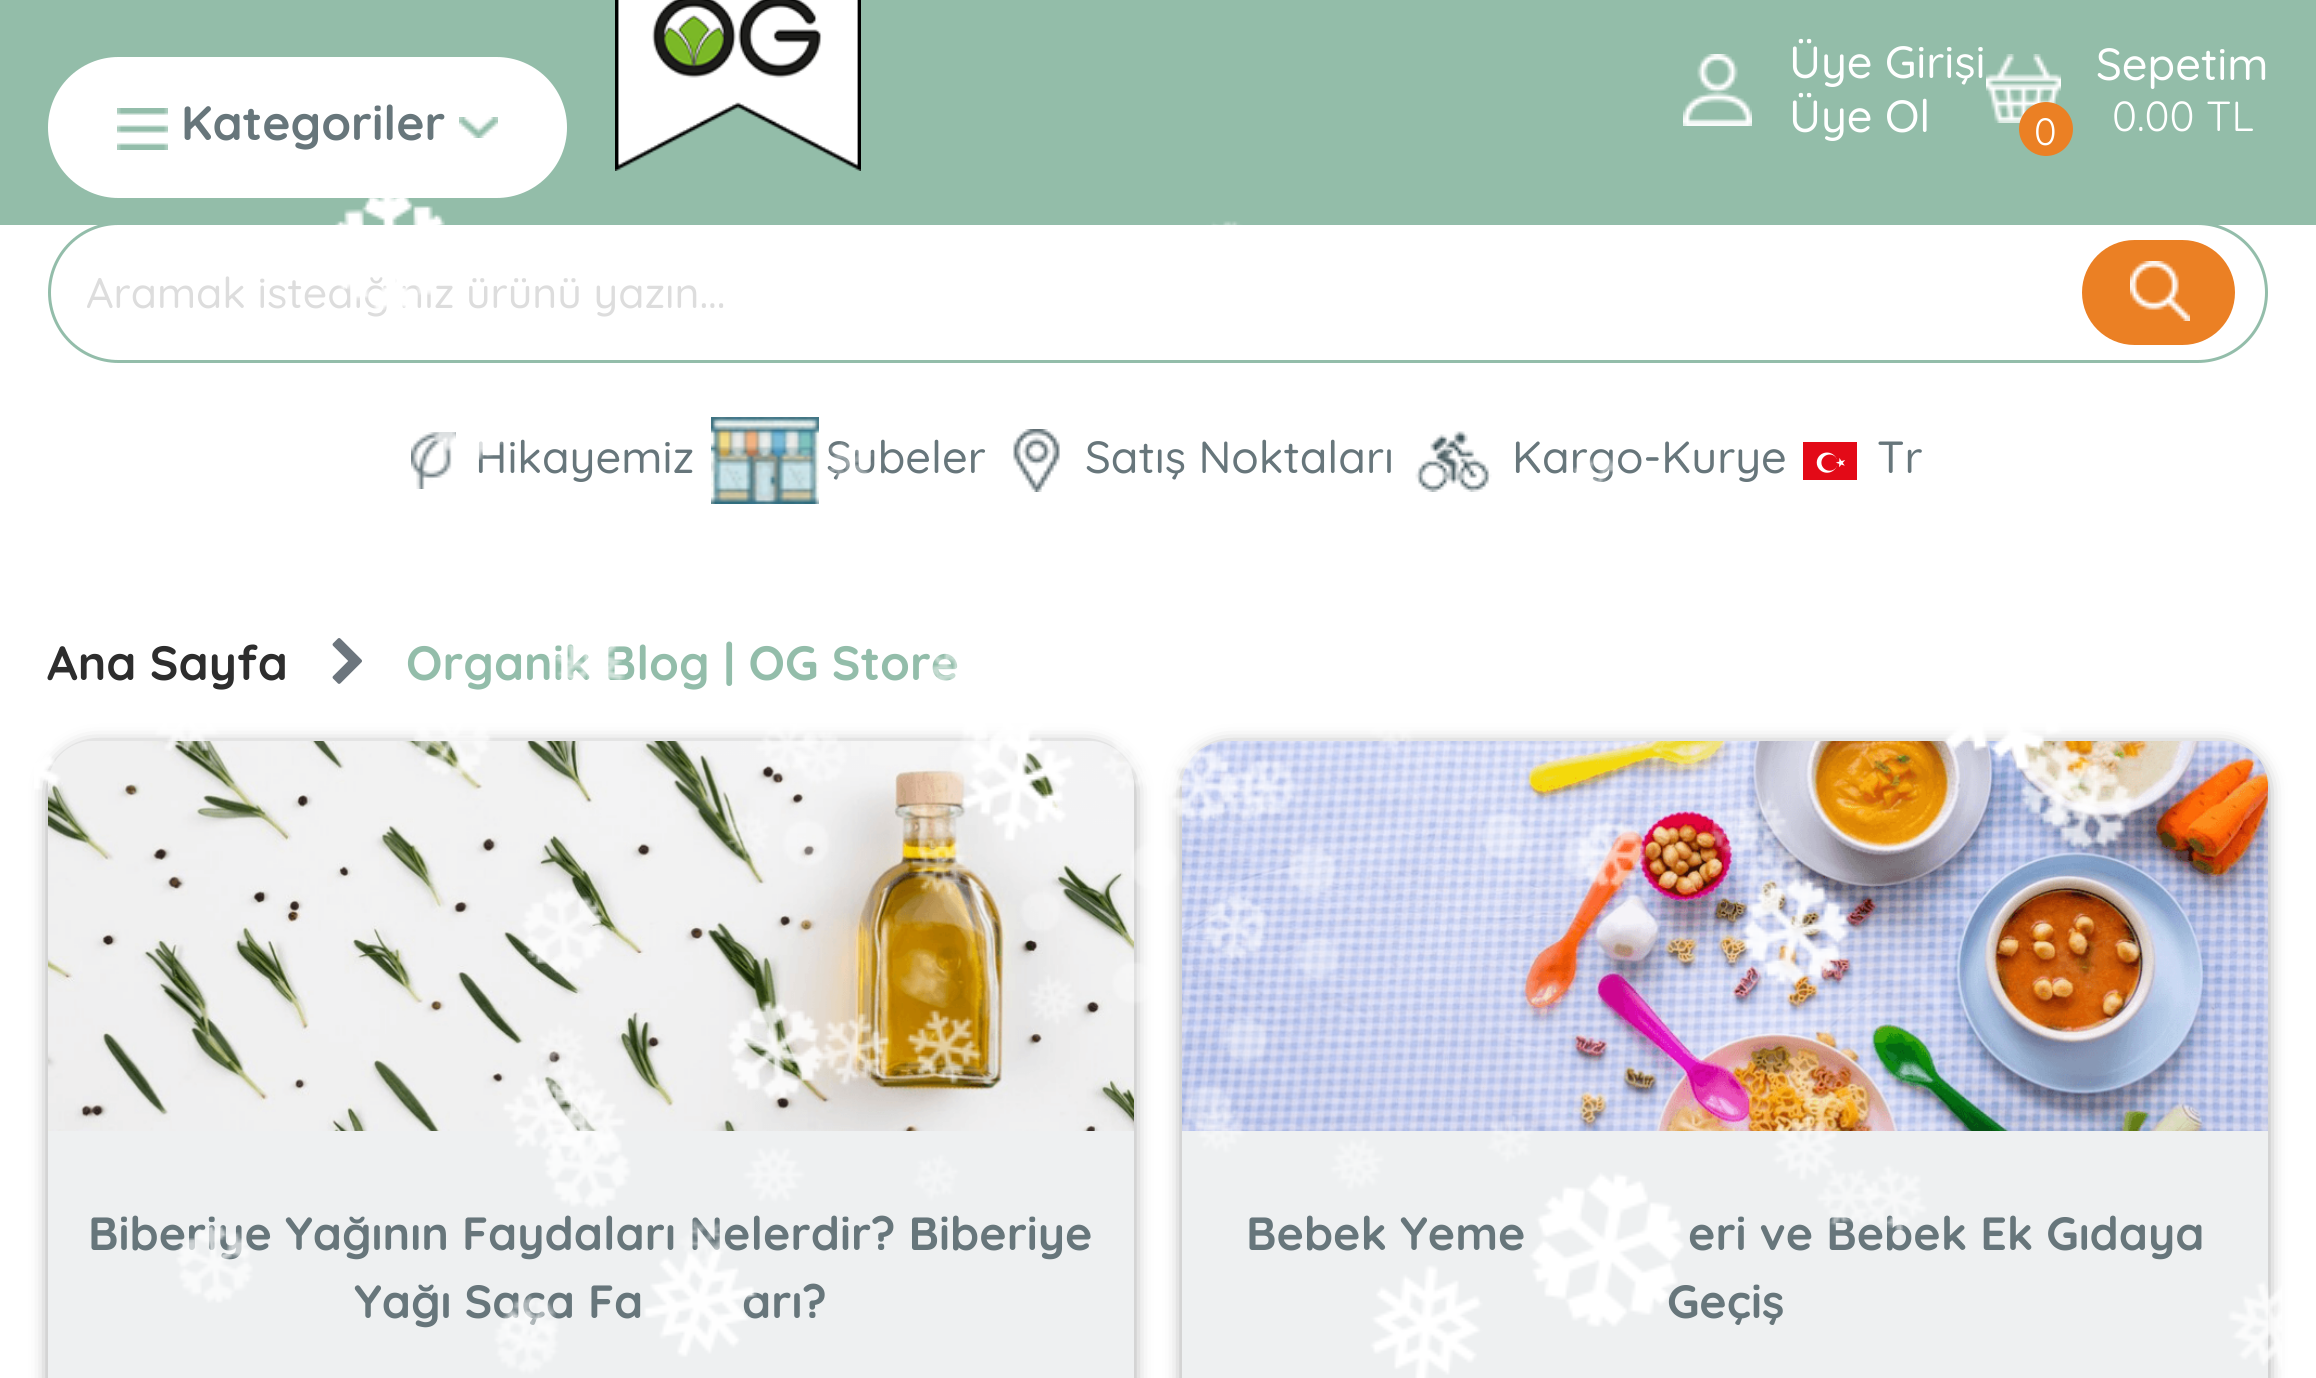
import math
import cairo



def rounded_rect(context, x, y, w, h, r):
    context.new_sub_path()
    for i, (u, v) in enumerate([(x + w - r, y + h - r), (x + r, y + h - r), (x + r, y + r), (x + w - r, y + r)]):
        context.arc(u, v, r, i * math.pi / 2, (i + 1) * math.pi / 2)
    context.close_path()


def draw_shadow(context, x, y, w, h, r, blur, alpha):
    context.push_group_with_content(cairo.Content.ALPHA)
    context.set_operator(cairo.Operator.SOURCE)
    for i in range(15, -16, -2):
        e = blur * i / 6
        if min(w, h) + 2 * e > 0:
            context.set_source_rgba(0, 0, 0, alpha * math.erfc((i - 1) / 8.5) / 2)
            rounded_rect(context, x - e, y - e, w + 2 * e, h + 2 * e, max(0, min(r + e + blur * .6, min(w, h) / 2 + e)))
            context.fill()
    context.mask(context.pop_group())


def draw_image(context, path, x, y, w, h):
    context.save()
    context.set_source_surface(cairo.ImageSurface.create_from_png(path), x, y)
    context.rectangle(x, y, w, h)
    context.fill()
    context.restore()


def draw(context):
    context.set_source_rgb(1, 1, 1)
    context.paint()
    context.set_source_rgb(147 / 255, 189 / 255, 169 / 255)
    context.rectangle(0, 0, 2316, 225)
    context.fill()
    context.set_source_rgb(1, 1, 1)
    rounded_rect(context, 48, 57, 519, 141, 70.5)
    context.fill()
    draw_image(context, "images/1.png", 117, 108, 51, 42)
    draw_image(context, "images/2.png", 459, 117, 39, 21)
    draw_image(context, "images/3.png", 615, 0, 246, 171)
    draw_image(context, "images/4.png", 1683, 54, 69, 72)
    draw_image(context, "images/5.png", 1986, 54, 75, 69)
    context.set_source_rgb(235 / 255, 128 / 255, 36 / 255)
    context.arc(2046, 129, 27, 0, 2 * math.pi)
    context.fill()
    context.set_source_rgb(1, 1, 1)
    rounded_rect(context, 49.5, 223.5, 2217, 138, 69)
    context.fill_preserve()
    context.set_source_rgb(147 / 255, 189 / 255, 170 / 255)
    context.set_line_width(3)
    context.stroke()
    context.set_source_rgb(235 / 255, 128 / 255, 36 / 255)
    rounded_rect(context, 2082, 240, 153, 105, 52.5)
    context.fill()
    draw_image(context, "images/6.png", 2130, 261, 60, 60)
    draw_image(context, "images/7.png", 411, 432, 45, 57)
    draw_image(context, "images/8.png", 711, 417, 108, 87)
    draw_image(context, "images/9.png", 1013, 429, 47, 63)
    draw_image(context, "images/10.png", 1415, 431, 77, 61)
    draw_image(context, "images/11.png", 1803, 442, 54, 38)
    draw_image(context, "images/13.png", 332, 638, 30, 46)
    context.set_source_rgb(85 / 255, 85 / 255, 85 / 255)
    draw_shadow(context, 54, 750, 1074, 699, 39, 10.5, 1)
    context.set_source_rgb(238 / 255, 240 / 255, 241 / 255)
    rounded_rect(context, 48, 741, 1086, 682, 45)
    context.fill()
    draw_image(context, "images/14.png", 48, 741, 1086, 390)
    context.set_source_rgb(85 / 255, 85 / 255, 85 / 255)
    draw_shadow(context, 1188, 750, 1074, 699, 39, 10.5, 1)
    context.set_source_rgb(238 / 255, 240 / 255, 241 / 255)
    rounded_rect(context, 1182, 741, 1086, 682, 45)
    context.fill()
    draw_image(context, "images/15.png", 1182, 741, 1086, 390)
    context.select_font_face("Quicksand", cairo.FontSlant.NORMAL, cairo.FontWeight.BOLD)
    context.set_font_size(48)
    context.set_source_rgb(103 / 255, 118 / 255, 123 / 255)
    context.move_to(181, 140)
    context.show_text("Kategoriler")
    context.select_font_face("Quicksand Medium")
    context.set_font_size(45)
    context.set_source_rgb(1, 1, 1)
    context.move_to(1789, 78)
    context.show_text("Üye Girişi")
    context.move_to(1789, 132)
    context.show_text("Üye Ol")
    context.move_to(2096, 80)
    context.show_text("Sepetim")
    context.select_font_face("Quicksand")
    context.set_font_size(42)
    context.move_to(2112, 131)
    context.show_text("0.00 TL")
    context.set_font_size(38)
    context.move_to(2034, 145)
    context.show_text("0")
    context.select_font_face("Quicksand Medium")
    context.set_font_size(42.75)
    context.set_source_rgb(221 / 255, 221 / 255, 221 / 255)
    context.move_to(86, 308)
    context.show_text("Aramak istediğiniz ürünü yazın...")
    context.set_font_size(45)
    context.set_source_rgb(103 / 255, 118 / 255, 123 / 255)
    context.move_to(475, 473)
    context.show_text("Hikayemiz")
    context.move_to(826, 473)
    context.show_text("Şubeler")
    context.move_to(1085, 473)
    context.show_text("Satış Noktaları")
    context.move_to(1512, 473)
    context.show_text("Kargo-Kurye")
    context.move_to(1877, 473)
    context.show_text("Tr")
    context.select_font_face("Quicksand", cairo.FontSlant.NORMAL, cairo.FontWeight.BOLD)
    context.set_font_size(48)
    context.set_source_rgb(45 / 255, 45 / 255, 45 / 255)
    context.move_to(47, 680)
    context.show_text("Ana Sayfa")
    context.set_source_rgb(147 / 255, 189 / 255, 170 / 255)
    context.move_to(406, 680)
    context.show_text("Organik Blog | OG Store")
    context.set_font_size(46.5)
    context.set_source_rgb(103 / 255, 118 / 255, 123 / 255)
    context.move_to(88, 1250)
    context.show_text("Biberiye Yağının Faydaları Nelerdir? Biberiye")
    context.move_to(354, 1318)
    context.show_text("Yağı Saça Fa")
    context.move_to(742, 1318)
    context.show_text("arı?")
    context.move_to(1246, 1250)
    context.show_text("Bebek Yeme")
    context.move_to(1688, 1250)
    context.show_text("eri ve Bebek Ek Gıdaya")
    context.move_to(1667, 1318)
    context.show_text("Geçiş")
    draw_image(context, "images/12.png", 34, 198, 2248, 1180)


surface = cairo.ImageSurface(cairo.Format.RGB24, 2316, 1378)
context = cairo.Context(surface)
options = cairo.FontOptions()
options.set_hint_metrics(cairo.HintMetrics.OFF)
options.set_hint_style(cairo.HintStyle.NONE)
context.set_font_options(options)
context.set_miter_limit(4)
draw(context)
surface.write_to_png("out.png")
